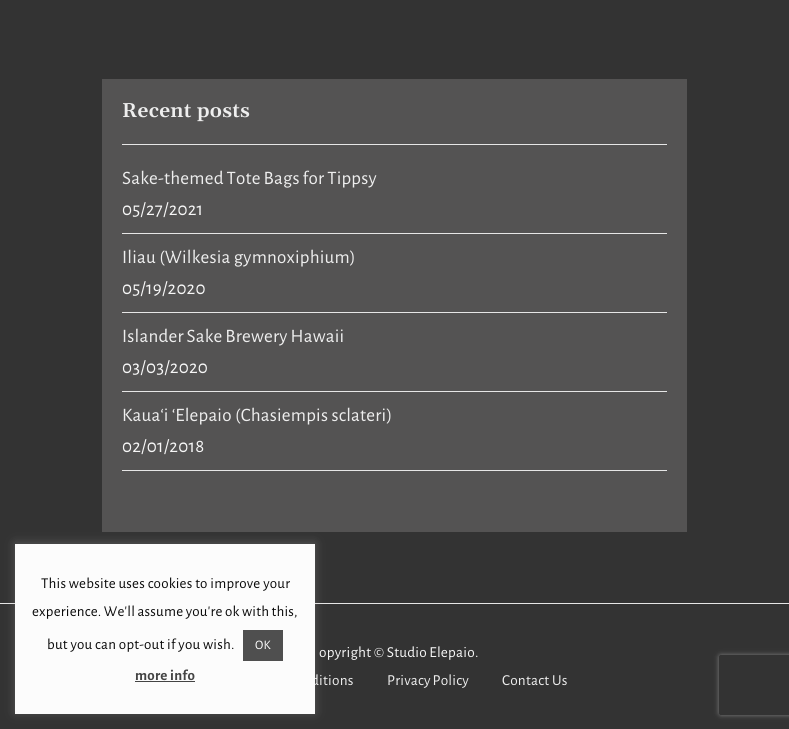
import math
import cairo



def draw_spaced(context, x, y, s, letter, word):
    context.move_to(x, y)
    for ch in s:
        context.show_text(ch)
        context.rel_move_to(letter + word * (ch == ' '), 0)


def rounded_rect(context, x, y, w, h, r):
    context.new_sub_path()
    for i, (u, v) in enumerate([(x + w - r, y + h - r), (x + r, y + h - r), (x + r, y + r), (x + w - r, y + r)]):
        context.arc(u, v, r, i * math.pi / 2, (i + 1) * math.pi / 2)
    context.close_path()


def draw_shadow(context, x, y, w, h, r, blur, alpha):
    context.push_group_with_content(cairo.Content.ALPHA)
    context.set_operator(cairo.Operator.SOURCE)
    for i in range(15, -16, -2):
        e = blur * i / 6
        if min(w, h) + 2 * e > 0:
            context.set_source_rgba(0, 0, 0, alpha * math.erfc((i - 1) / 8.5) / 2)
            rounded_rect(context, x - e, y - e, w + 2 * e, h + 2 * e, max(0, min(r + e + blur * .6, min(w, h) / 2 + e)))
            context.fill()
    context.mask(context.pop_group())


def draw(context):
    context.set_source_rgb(51 / 255, 51 / 255, 51 / 255)
    context.paint()
    context.set_source_rgb(84 / 255, 83 / 255, 83 / 255)
    context.rectangle(102, 79, 585, 453)
    context.fill()
    context.set_source_rgb(230 / 255, 230 / 255, 230 / 255)
    context.rectangle(122, 144, 545, 1)
    context.fill()
    context.rectangle(122, 233, 545, 1)
    context.fill()
    context.rectangle(122, 312, 545, 1)
    context.fill()
    context.rectangle(122, 391, 545, 1)
    context.fill()
    context.rectangle(122, 470, 545, 1)
    context.fill()
    context.rectangle(0, 603, 789, 1)
    context.fill()
    context.set_source_rgb(172 / 255, 171 / 255, 171 / 255)
    draw_shadow(context, 15, 543, 300, 170, 0, 5, 0.3)
    context.save()
    context.set_fill_rule(cairo.FillRule.EVEN_ODD)
    context.new_path()
    context.move_to(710, 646)
    context.line_to(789, 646)
    context.line_to(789, 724)
    context.line_to(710, 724)
    context.close_path()
    context.move_to(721, 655)
    context.line_to(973, 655)
    context.curve_to(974, 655, 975, 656, 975, 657)
    context.line_to(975, 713)
    context.curve_to(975, 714, 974, 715, 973, 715)
    context.line_to(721, 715)
    context.curve_to(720, 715, 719, 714, 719, 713)
    context.line_to(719, 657)
    context.curve_to(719, 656, 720, 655, 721, 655)
    context.close_path()
    context.clip()
    context.set_source_rgb(128 / 255, 128 / 255, 128 / 255)
    draw_shadow(context, 719, 655, 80, 60, 2, 2.5, 1)
    context.restore()
    context.select_font_face("Gelasio SemiBold")
    context.set_font_size(20)
    context.set_source_rgb(238 / 255, 238 / 255, 238 / 255)
    draw_spaced(context, 122, 117, "Recent posts", 0.25, 0)
    context.select_font_face("Alegreya Sans")
    context.set_font_size(19)
    draw_spaced(context, 122, 184, "Sake-themed Tote Bags for Tippsy", 0.2, -0.5)
    context.set_source_rgb(247 / 255, 247 / 255, 247 / 255)
    draw_spaced(context, 122, 215, "05/27/2021", 0.2, 0)
    context.set_source_rgb(238 / 255, 238 / 255, 238 / 255)
    draw_spaced(context, 122, 263, "Iliau (Wilkesia gymnoxiphium)", 0.2, 0)
    context.set_source_rgb(247 / 255, 247 / 255, 247 / 255)
    draw_spaced(context, 122, 294, "05/19/2020", 0.2, 0)
    context.set_source_rgb(238 / 255, 238 / 255, 238 / 255)
    draw_spaced(context, 122, 342, "Islander Sake Brewery Hawaii", 0.2, -0.5)
    context.set_source_rgb(247 / 255, 247 / 255, 247 / 255)
    draw_spaced(context, 122, 373, "03/03/2020", 0.2, 0)
    context.set_source_rgb(238 / 255, 238 / 255, 238 / 255)
    draw_spaced(context, 122, 421, "Kaua‘i ‘Elepaio (Chasiempis sclateri)", 0.2, 0)
    context.set_source_rgb(247 / 255, 247 / 255, 247 / 255)
    draw_spaced(context, 122, 452, "02/01/2018", 0.2, 0)
    context.set_font_size(15.25)
    draw_spaced(context, 319, 657, "opyright © Studio Elepaio.", 0.2, -0.25)
    context.set_source_rgb(238 / 255, 238 / 255, 238 / 255)
    draw_spaced(context, 311, 685, "ditions", 0.2, -1)
    draw_spaced(context, 387, 685, "Privacy Policy", 0.2, -1)
    draw_spaced(context, 502, 685, "Contact Us", 0.2, 0)
    context.set_source_rgb(252 / 255, 252 / 255, 252 / 255)
    context.rectangle(15, 544, 300, 170)
    context.fill()
    context.set_font_size(15)
    context.set_source_rgb(10 / 255, 10 / 255, 10 / 255)
    draw_spaced(context, 41, 588, "This website uses cookies to improve your", 0.2, 0)
    draw_spaced(context, 32, 616, "experience. We'll assume you're ok with this,", 0.2, -0.25)
    draw_spaced(context, 47, 649, "but you can opt-out if you wish.", 0.2, 0)
    context.set_source_rgb(79 / 255, 79 / 255, 79 / 255)
    context.rectangle(243, 630, 40, 31)
    context.fill()
    context.set_font_size(13)
    context.set_source_rgb(1, 1, 1)
    draw_spaced(context, 255, 649, "OK", 0.2, 0)
    context.select_font_face("Alegreya Sans", cairo.FontSlant.NORMAL, cairo.FontWeight.BOLD)
    context.set_font_size(15)
    context.set_source_rgb(68 / 255, 68 / 255, 68 / 255)
    draw_spaced(context, 135, 680, "more info", 0.2, 0)
    context.rectangle(135, 681, 60, 1)
    context.fill()


surface = cairo.ImageSurface(cairo.Format.RGB24, 789, 729)
context = cairo.Context(surface)
options = cairo.FontOptions()
options.set_hint_metrics(cairo.HintMetrics.OFF)
options.set_hint_style(cairo.HintStyle.NONE)
context.set_font_options(options)
context.set_miter_limit(4)
draw(context)
surface.write_to_png("out.png")
